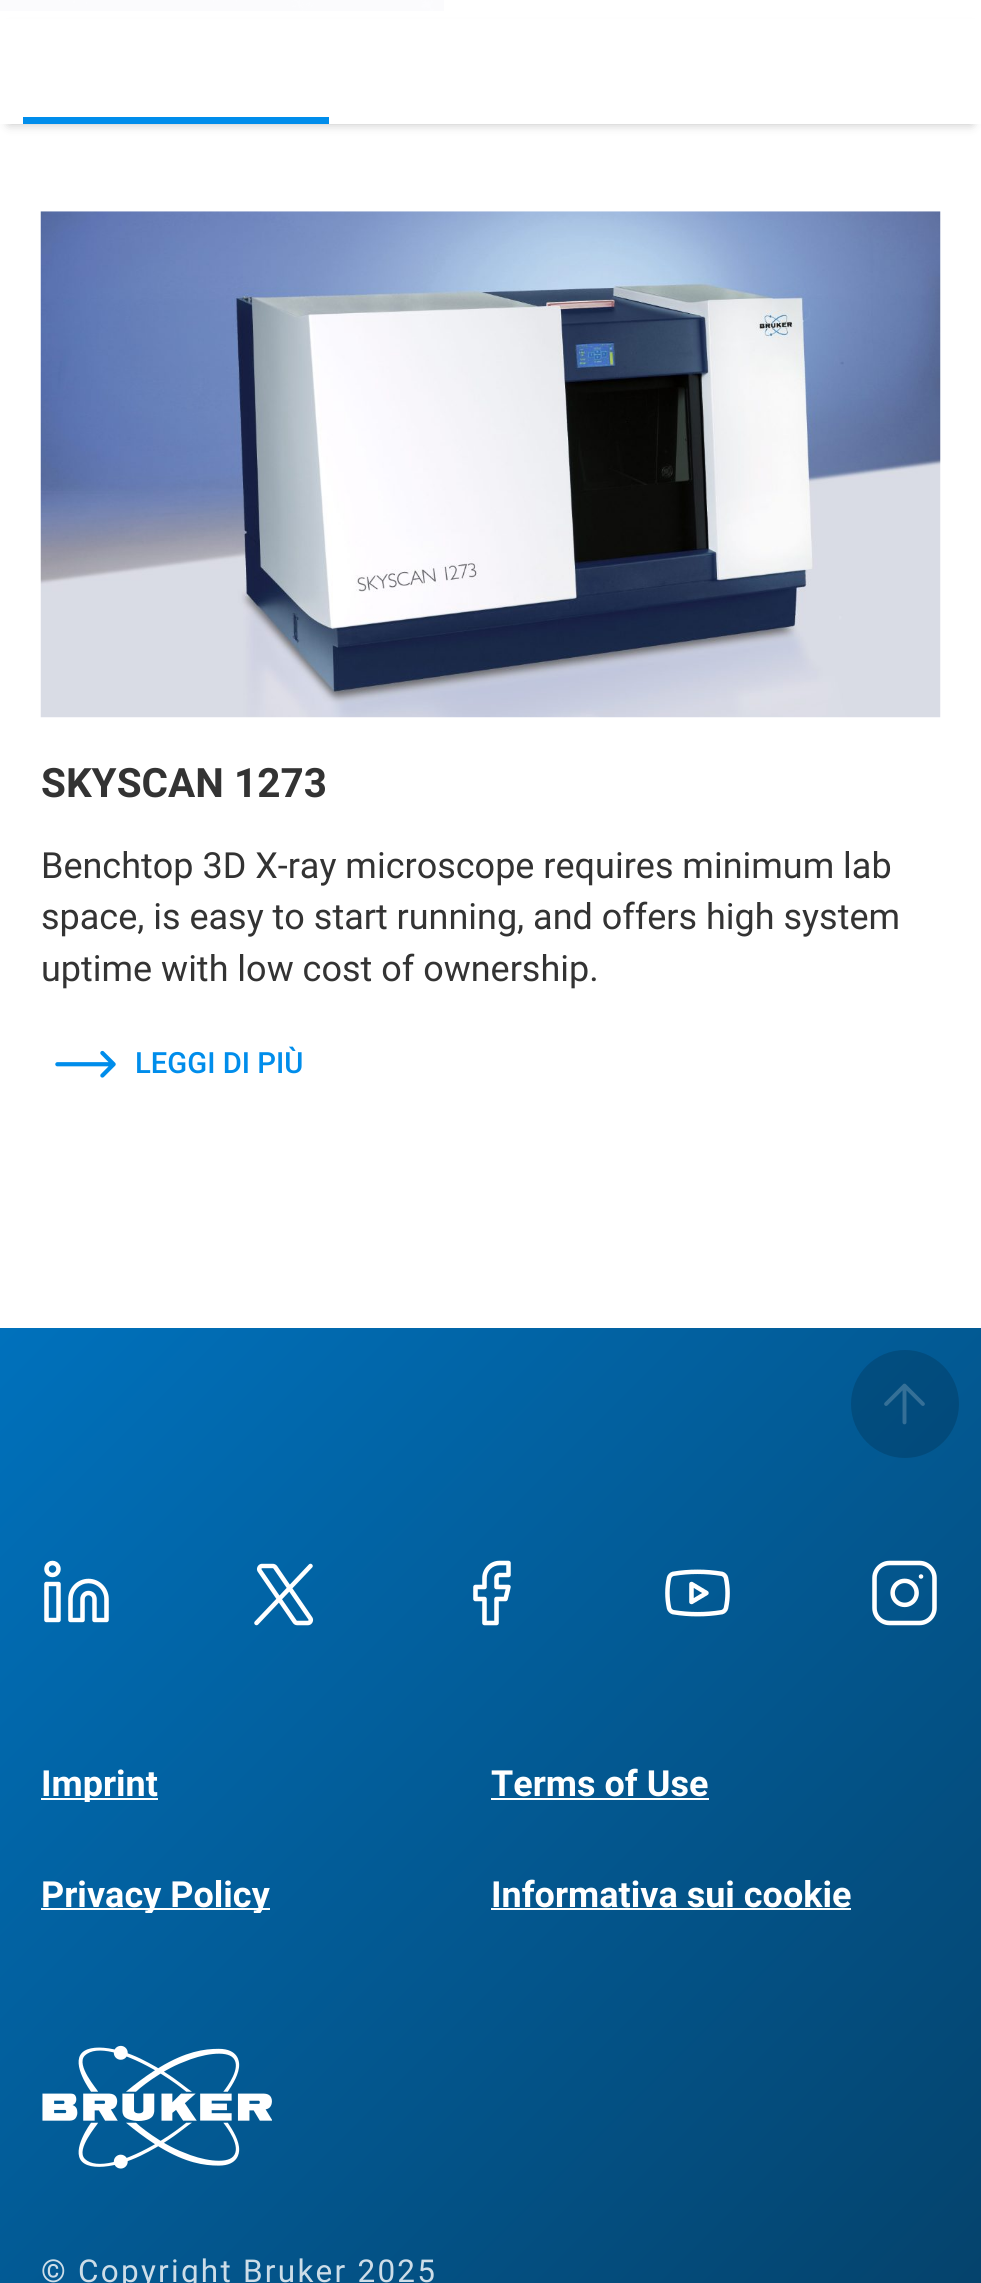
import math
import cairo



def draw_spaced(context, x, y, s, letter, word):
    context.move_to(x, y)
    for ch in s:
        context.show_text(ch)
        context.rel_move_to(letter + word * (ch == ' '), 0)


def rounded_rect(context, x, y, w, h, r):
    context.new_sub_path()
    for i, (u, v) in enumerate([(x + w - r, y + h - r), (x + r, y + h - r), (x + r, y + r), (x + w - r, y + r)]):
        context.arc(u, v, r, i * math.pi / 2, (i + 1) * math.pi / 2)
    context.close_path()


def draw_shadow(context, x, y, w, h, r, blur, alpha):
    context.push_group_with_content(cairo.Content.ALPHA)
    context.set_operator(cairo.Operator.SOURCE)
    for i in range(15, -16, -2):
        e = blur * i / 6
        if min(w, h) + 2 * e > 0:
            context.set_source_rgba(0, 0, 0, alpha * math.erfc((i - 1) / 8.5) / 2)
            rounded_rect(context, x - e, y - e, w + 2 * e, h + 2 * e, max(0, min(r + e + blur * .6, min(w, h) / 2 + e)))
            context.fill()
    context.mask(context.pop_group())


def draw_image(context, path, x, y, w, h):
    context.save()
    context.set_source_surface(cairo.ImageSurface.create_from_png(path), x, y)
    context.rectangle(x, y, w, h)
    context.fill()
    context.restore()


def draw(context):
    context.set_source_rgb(1, 1, 1)
    context.paint()
    draw_image(context, "images/1.png", 0, 0, 444, 11)
    context.set_source_rgb(0, 0, 0)
    draw_shadow(context, 9, 29, 963, 95, 0, 5.5, 0.25)
    context.set_source_rgb(1, 1, 1)
    context.rectangle(0, 19, 981, 105)
    context.fill()
    context.set_source_rgb(0, 141 / 255, 235 / 255)
    context.rectangle(23, 117, 306, 7)
    context.fill()
    draw_image(context, "images/2.png", 40, 211, 901, 507)
    draw_image(context, "images/3.png", 55, 1050, 61, 28)
    gradient = cairo.LinearGradient(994, 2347, -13, 1340)
    gradient.add_color_stop_rgba(0, 5 / 255, 65 / 255, 105 / 255, 1)
    gradient.add_color_stop_rgba(1, 0, 113 / 255, 188 / 255, 1)
    context.set_source(gradient)
    context.rectangle(0, 1328, 981, 955)
    context.fill()
    context.set_source_rgba(0, 20 / 255, 37 / 255, 0.2)
    context.arc(905, 1404, 54, 0, 2 * math.pi)
    context.fill()
    draw_image(context, "images/4.png", 884, 1383, 41, 42)
    draw_image(context, "images/5.png", 44, 1560, 65, 63)
    draw_image(context, "images/6.png", 254, 1563, 60, 63)
    draw_image(context, "images/7.png", 473, 1560, 38, 66)
    draw_image(context, "images/8.png", 665, 1569, 65, 48)
    draw_image(context, "images/9.png", 872, 1560, 65, 66)
    context.set_source_rgb(1, 1, 1)
    context.rectangle(41, 1798, 117, 2)
    context.fill()
    context.rectangle(491, 1798, 218, 2)
    context.fill()
    context.rectangle(41, 1908, 229, 2)
    context.fill()
    context.rectangle(491, 1908, 360, 2)
    context.fill()
    draw_image(context, "images/10.png", 42, 2045, 230, 124)
    context.select_font_face("Roboto", cairo.FontSlant.NORMAL, cairo.FontWeight.BOLD)
    context.set_font_size(40.5)
    context.set_source_rgb(51 / 255, 51 / 255, 51 / 255)
    context.move_to(41, 797)
    context.show_text("SKYSCAN 1273")
    context.select_font_face("Roboto")
    context.set_font_size(36)
    context.move_to(41, 878)
    context.show_text("Benchtop 3D X-ray microscope requires minimum lab")
    context.move_to(41, 929)
    context.show_text("space, is easy to start running, and offers high system")
    context.move_to(41, 981)
    context.show_text("uptime with low cost of ownership.")
    context.select_font_face("Roboto Medium")
    context.set_font_size(29.25)
    context.set_source_rgb(0, 141 / 255, 235 / 255)
    context.move_to(135, 1073)
    context.show_text("LEGGI DI PIÙ")
    context.save()
    context.rectangle(41, 1757, 450, 45)
    context.clip()
    context.select_font_face("Roboto", cairo.FontSlant.NORMAL, cairo.FontWeight.BOLD)
    context.set_font_size(36)
    context.set_source_rgb(1, 1, 1)
    context.move_to(41, 1796)
    context.show_text("Imprint")
    context.restore()
    context.select_font_face("Roboto", cairo.FontSlant.NORMAL, cairo.FontWeight.BOLD)
    context.set_font_size(36)
    context.set_source_rgb(1, 1, 1)
    context.move_to(491, 1796)
    context.show_text("Terms of Use")
    context.save()
    context.rectangle(41, 1868, 450, 45)
    context.clip()
    context.move_to(41, 1907)
    context.show_text("Privacy Policy")
    context.restore()
    context.move_to(491, 1907)
    context.show_text("Informativa sui cookie")
    context.select_font_face("Roboto")
    context.set_font_size(31.5)
    context.set_source_rgb(205 / 255, 221 / 255, 232 / 255)
    draw_spaced(context, 41, 2282, "© Copyright Bruker 2025", 2.25, 0)


surface = cairo.ImageSurface(cairo.Format.RGB24, 981, 2283)
context = cairo.Context(surface)
options = cairo.FontOptions()
options.set_hint_metrics(cairo.HintMetrics.OFF)
options.set_hint_style(cairo.HintStyle.NONE)
context.set_font_options(options)
context.set_miter_limit(4)
draw(context)
surface.write_to_png("out.png")
